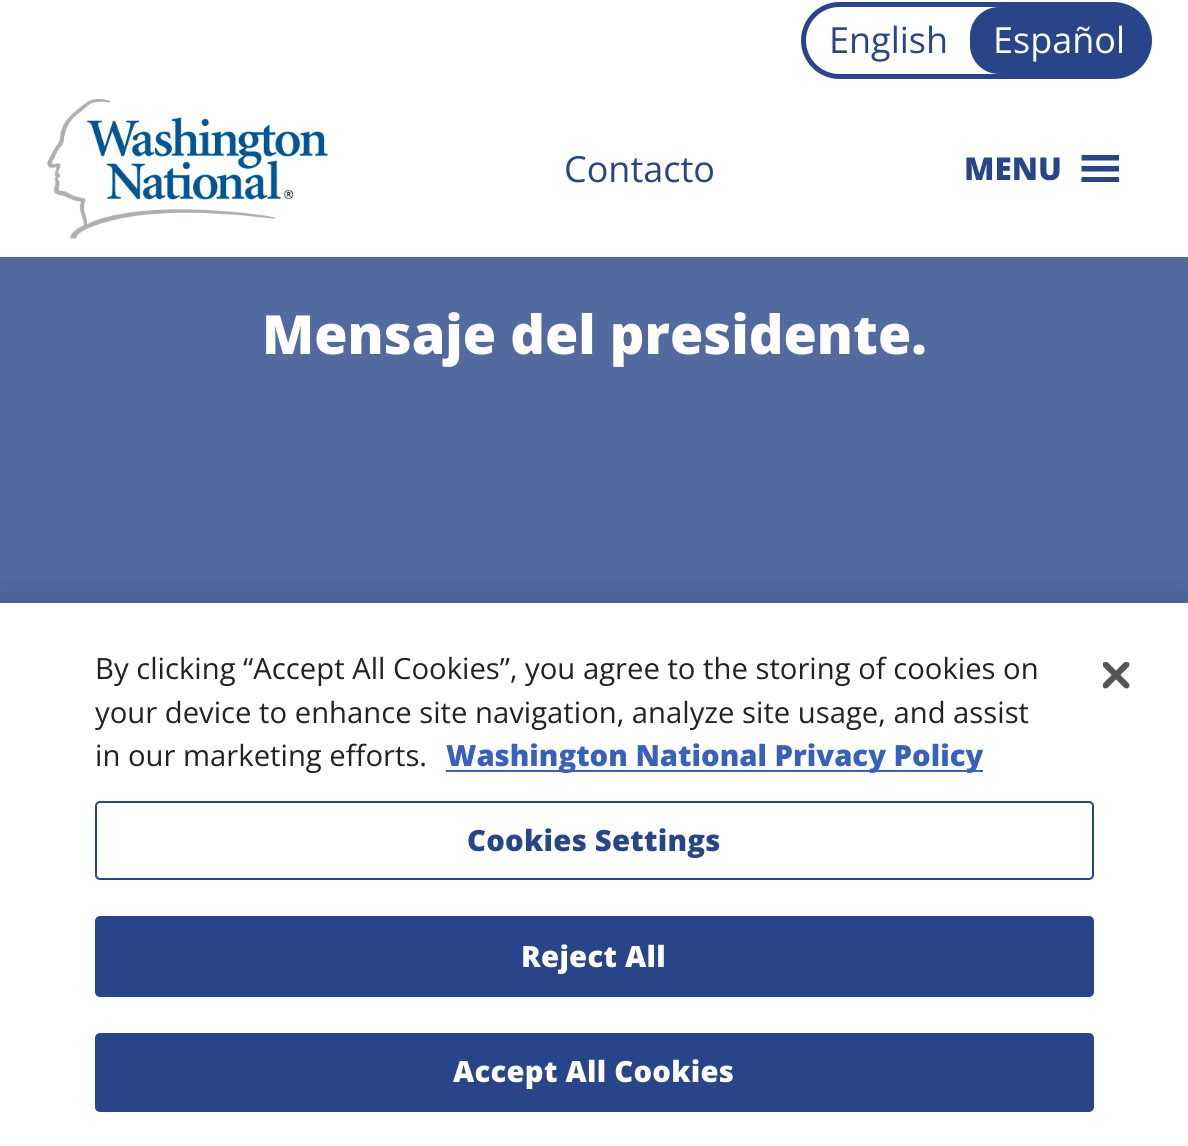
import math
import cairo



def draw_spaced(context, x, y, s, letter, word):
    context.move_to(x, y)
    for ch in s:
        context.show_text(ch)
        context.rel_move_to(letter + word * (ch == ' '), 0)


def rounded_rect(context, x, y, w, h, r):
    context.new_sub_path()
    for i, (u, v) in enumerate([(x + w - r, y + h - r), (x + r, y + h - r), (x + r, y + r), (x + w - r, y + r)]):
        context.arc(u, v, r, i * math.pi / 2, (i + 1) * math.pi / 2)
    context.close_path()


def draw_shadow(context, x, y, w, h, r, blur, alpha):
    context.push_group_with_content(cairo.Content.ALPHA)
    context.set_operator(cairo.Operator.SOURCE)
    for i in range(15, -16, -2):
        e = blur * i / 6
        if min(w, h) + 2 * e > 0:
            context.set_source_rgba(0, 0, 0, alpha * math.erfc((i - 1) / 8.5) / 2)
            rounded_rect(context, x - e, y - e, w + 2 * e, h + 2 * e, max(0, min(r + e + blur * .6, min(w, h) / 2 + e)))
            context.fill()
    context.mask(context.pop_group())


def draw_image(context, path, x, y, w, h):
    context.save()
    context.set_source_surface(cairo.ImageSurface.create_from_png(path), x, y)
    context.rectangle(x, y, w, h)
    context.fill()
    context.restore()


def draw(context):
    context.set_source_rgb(1, 1, 1)
    context.paint()
    rounded_rect(context, 803.5, 4.5, 346, 72, 36)
    context.set_source_rgb(40 / 255, 69 / 255, 137 / 255)
    context.set_line_width(5)
    context.stroke()
    rounded_rect(context, 970, 7, 178, 67, 29)
    context.fill()
    draw_image(context, "images/1.png", 47, 99, 281, 140)
    context.new_path()
    context.move_to(1081.5, 182)
    context.line_to(1119, 182)
    context.line_to(1119, 177)
    context.line_to(1081.5, 177)
    context.close_path()
    context.move_to(1081.5, 155)
    context.line_to(1081.5, 160.5)
    context.line_to(1119, 160.5)
    context.line_to(1119, 155)
    context.close_path()
    context.move_to(1081.5, 171.5)
    context.line_to(1119, 171.5)
    context.line_to(1119, 166)
    context.line_to(1081.5, 166)
    context.close_path()
    context.fill()
    context.set_source_rgb(83 / 255, 106 / 255, 161 / 255)
    context.rectangle(0, 257, 1188, 346)
    context.fill()
    context.set_source_rgb(0, 0, 0)
    draw_shadow(context, 0, 603, 1188, 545, 0, 20, 0.2)
    context.set_source_rgb(1, 1, 1)
    context.rectangle(0, 603, 1188, 543)
    context.fill()
    context.set_source_rgb(56 / 255, 96 / 255, 190 / 255)
    context.rectangle(446, 770, 537, 2)
    context.fill()
    rounded_rect(context, 96, 802, 997, 77, 4)
    context.set_source_rgb(40 / 255, 69 / 255, 137 / 255)
    context.set_line_width(2)
    context.stroke()
    rounded_rect(context, 96, 917, 997, 79, 4)
    context.fill_preserve()
    context.stroke()
    rounded_rect(context, 96, 1034, 997, 77, 4)
    context.fill_preserve()
    context.stroke()
    draw_image(context, "images/2.png", 1103, 662, 27, 27)
    context.select_font_face("Open Sans")
    context.set_font_size(36)
    context.move_to(829, 53)
    context.show_text("English")
    context.set_source_rgb(1, 1, 1)
    context.move_to(993, 53)
    context.show_text("Español")
    context.set_source_rgb(40 / 255, 69 / 255, 137 / 255)
    context.move_to(564, 182)
    context.show_text("Contacto")
    context.select_font_face("Open Sans ExtraBold")
    context.set_font_size(31.5)
    context.move_to(964, 180)
    context.show_text("MENU")
    context.set_font_size(54)
    context.set_source_rgb(1, 1, 1)
    context.move_to(262, 354)
    context.show_text("Mensaje del presidente.")
    context.select_font_face("Open Sans")
    context.set_font_size(29.25)
    context.set_source_rgb(34 / 255, 34 / 255, 34 / 255)
    context.move_to(95, 679)
    context.show_text("By clicking “Accept All Cookies”, you agree to the storing of cookies on")
    context.move_to(95, 723)
    context.show_text("your device to enhance site navigation, analyze site usage, and assist")
    context.move_to(95, 766)
    context.show_text("in our marketing efforts.")
    context.select_font_face("Open Sans ExtraBold")
    context.set_source_rgb(56 / 255, 96 / 255, 190 / 255)
    context.move_to(446, 766)
    context.show_text("Washington National Privacy Policy")
    context.set_source_rgb(40 / 255, 69 / 255, 137 / 255)
    draw_spaced(context, 467, 851, "Cookies Settings", 0.25, 0)
    context.set_source_rgb(1, 1, 1)
    draw_spaced(context, 521, 967, "Reject All", 0.25, 0)
    draw_spaced(context, 453, 1082, "Accept All Cookies", 0.25, 0)


surface = cairo.ImageSurface(cairo.Format.RGB24, 1188, 1146)
context = cairo.Context(surface)
options = cairo.FontOptions()
options.set_hint_metrics(cairo.HintMetrics.OFF)
options.set_hint_style(cairo.HintStyle.NONE)
context.set_font_options(options)
context.set_miter_limit(4)
draw(context)
surface.write_to_png("out.png")
